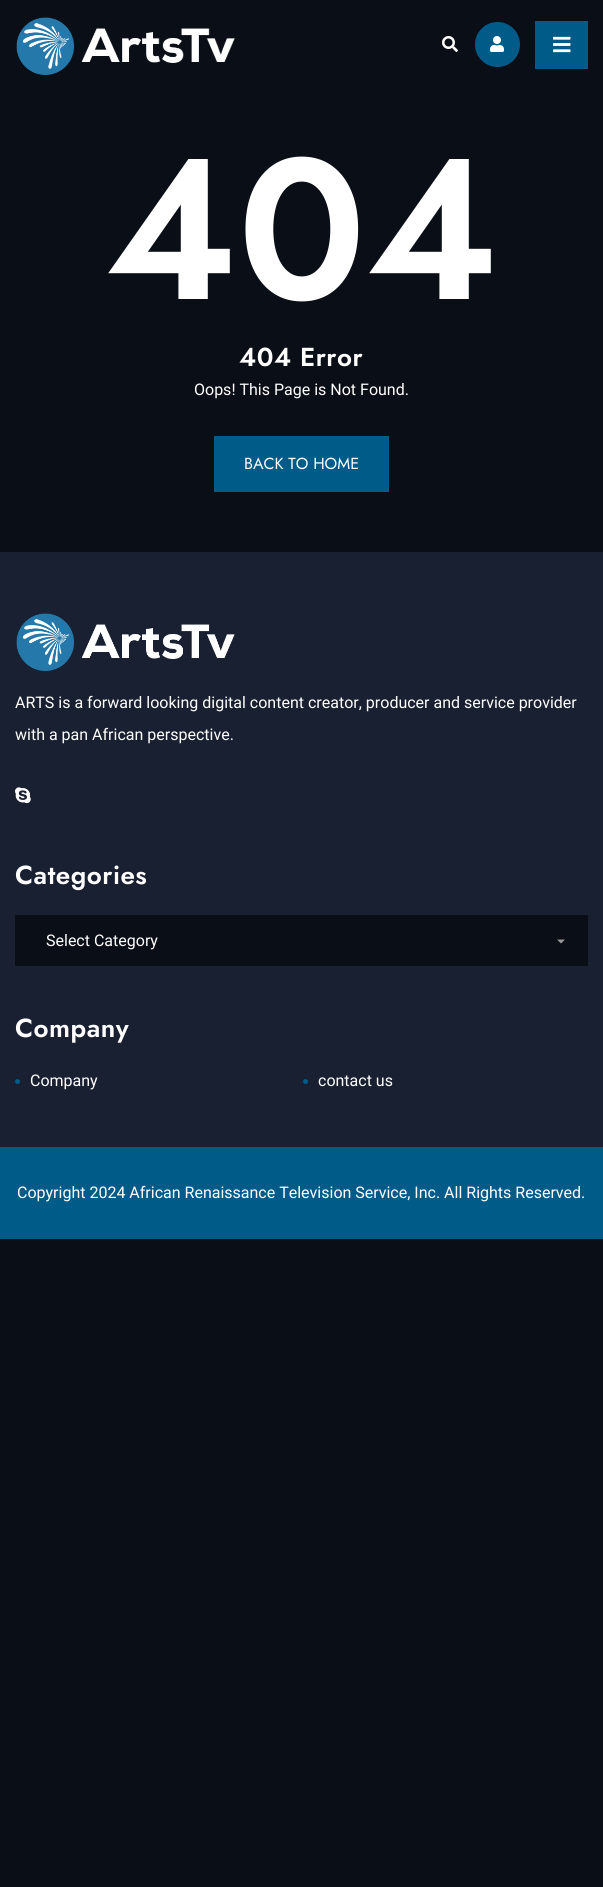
import math
import cairo



def draw_spaced(context, x, y, s, letter, word):
    context.move_to(x, y)
    for ch in s:
        context.show_text(ch)
        context.rel_move_to(letter + word * (ch == ' '), 0)


def draw_image(context, path, x, y, w, h):
    context.save()
    context.set_source_surface(cairo.ImageSurface.create_from_png(path), x, y)
    context.rectangle(x, y, w, h)
    context.fill()
    context.restore()


def draw(context):
    context.set_source_rgb(10 / 255, 14 / 255, 23 / 255)
    context.paint()
    draw_image(context, "images/1.png", 16, 17, 219, 58)
    draw_image(context, "images/2.png", 442, 36, 16, 16)
    context.set_source_rgb(0, 91 / 255, 137 / 255)
    context.arc(497.5, 44.5, 22.5, 0, 2 * math.pi)
    context.fill()
    draw_image(context, "images/3.png", 490, 36, 14, 16)
    context.rectangle(535, 21, 53, 48)
    context.fill()
    draw_image(context, "images/4.png", 553, 36, 18, 17)
    context.rectangle(214, 436, 175, 56)
    context.fill()
    context.set_source_rgb(24 / 255, 32 / 255, 49 / 255)
    context.rectangle(0, 552, 603, 595)
    context.fill()
    draw_image(context, "images/5.png", 16, 613, 219, 58)
    draw_image(context, "images/6.png", 15, 787, 16, 17)
    context.set_source_rgb(10 / 255, 14 / 255, 23 / 255)
    context.rectangle(15, 915, 573, 51)
    context.fill()
    context.set_source_rgb(153 / 255, 153 / 255, 153 / 255)
    context.new_path()
    context.move_to(557, 939.5)
    context.line_to(561, 943.5)
    context.line_to(565, 939.5)
    context.close_path()
    context.fill()
    context.set_source_rgb(0, 91 / 255, 137 / 255)
    context.arc(17.5, 1081.5, 2.5, 0, 2 * math.pi)
    context.fill()
    context.arc(305.5, 1081.5, 2.5, 0, 2 * math.pi)
    context.fill()
    context.rectangle(0, 1147, 603, 92)
    context.fill()
    context.select_font_face("Jost SemiBold")
    context.set_font_size(200)
    context.set_source_rgb(1, 1, 1)
    context.move_to(105, 299)
    context.show_text("404")
    context.set_font_size(26)
    draw_spaced(context, 239, 366, "404 Error", 0.5, 0)
    context.select_font_face("Roboto")
    context.set_font_size(16)
    context.move_to(194, 395)
    context.show_text("Oops! This Page is Not Found.")
    context.select_font_face("Jost")
    context.move_to(244, 469)
    context.show_text("BACK TO HOME")
    context.select_font_face("Roboto")
    context.move_to(15, 708)
    context.show_text("ARTS is a forward looking digital content creator, producer and service provider")
    context.move_to(15, 740)
    context.show_text("with a pan African perspective.")
    context.select_font_face("Jost SemiBold")
    context.set_font_size(26)
    draw_spaced(context, 15, 884, "Categories", 0.5, 0)
    context.select_font_face("Roboto")
    context.set_font_size(16)
    context.move_to(46, 946)
    context.show_text("Select Category")
    context.select_font_face("Jost SemiBold")
    context.set_font_size(26)
    draw_spaced(context, 15, 1037, "Company", 0.5, 0)
    context.select_font_face("Roboto")
    context.set_font_size(16)
    context.move_to(30, 1086)
    context.show_text("Company")
    context.move_to(318, 1086)
    context.show_text("contact us")
    context.move_to(17, 1198)
    context.show_text("Copyright 2024 African Renaissance Television Service, Inc. All Rights Reserved.")


surface = cairo.ImageSurface(cairo.Format.RGB24, 603, 1887)
context = cairo.Context(surface)
options = cairo.FontOptions()
options.set_hint_metrics(cairo.HintMetrics.OFF)
options.set_hint_style(cairo.HintStyle.NONE)
context.set_font_options(options)
context.set_miter_limit(4)
draw(context)
surface.write_to_png("out.png")
